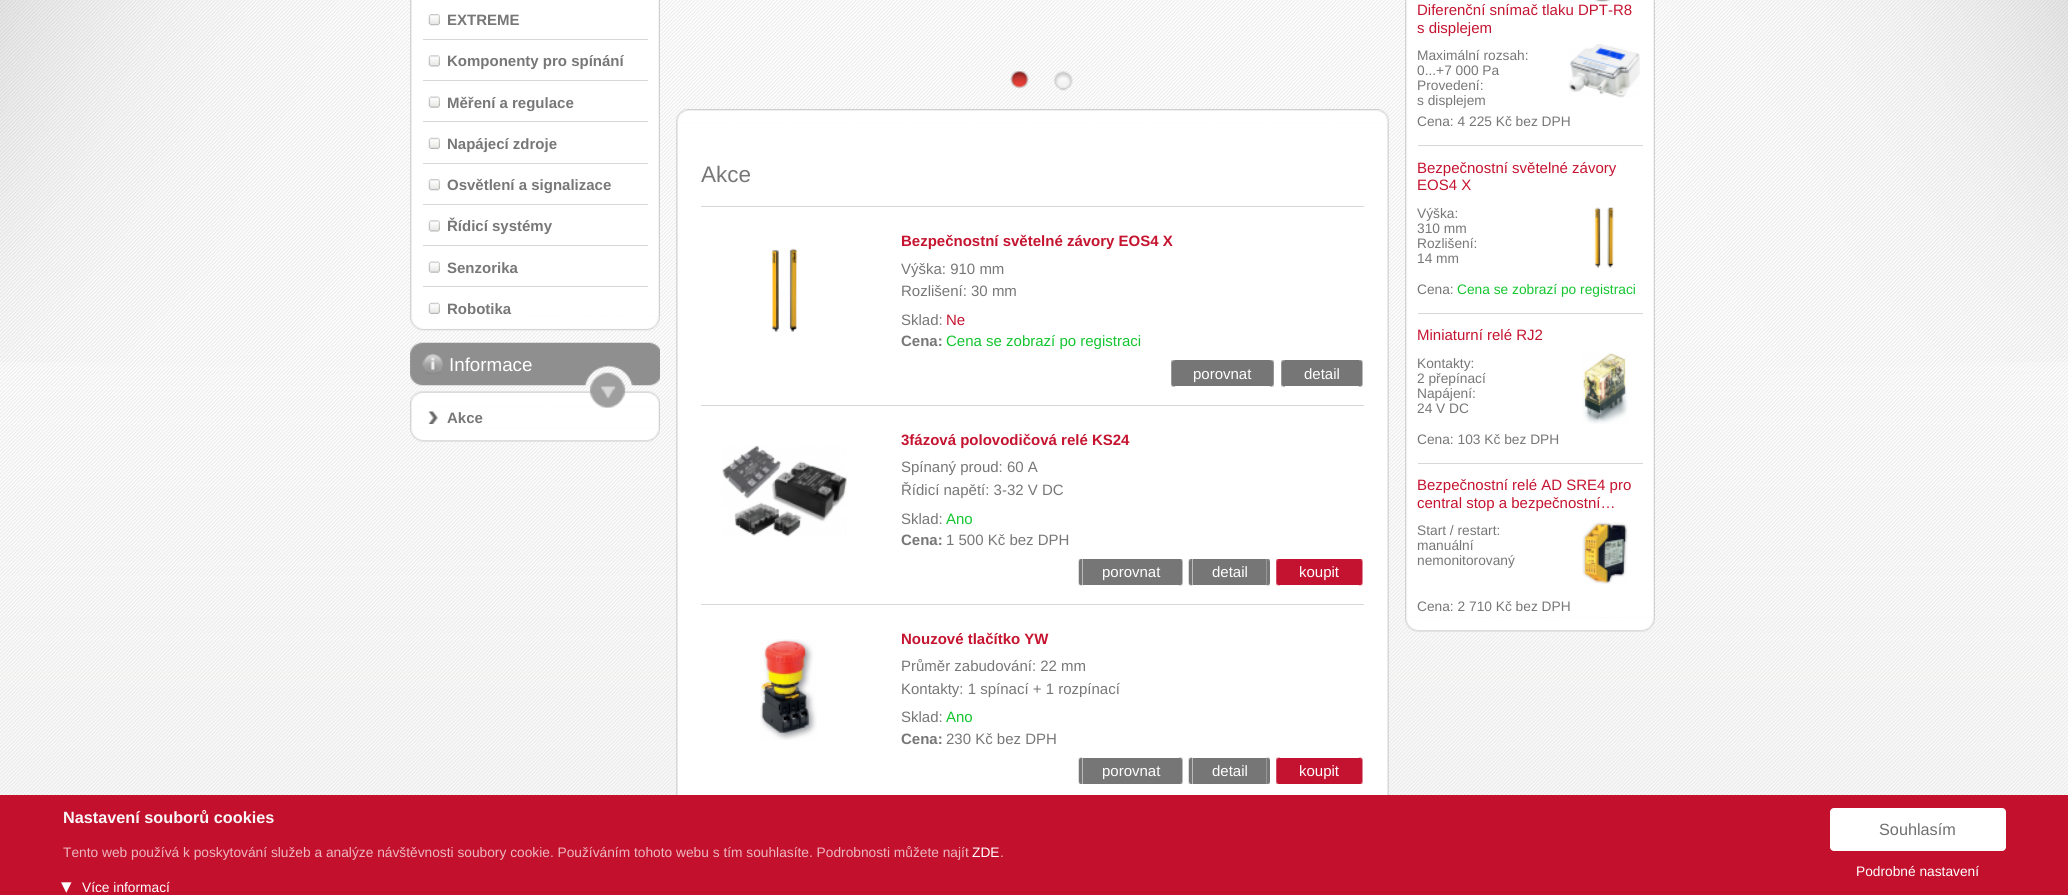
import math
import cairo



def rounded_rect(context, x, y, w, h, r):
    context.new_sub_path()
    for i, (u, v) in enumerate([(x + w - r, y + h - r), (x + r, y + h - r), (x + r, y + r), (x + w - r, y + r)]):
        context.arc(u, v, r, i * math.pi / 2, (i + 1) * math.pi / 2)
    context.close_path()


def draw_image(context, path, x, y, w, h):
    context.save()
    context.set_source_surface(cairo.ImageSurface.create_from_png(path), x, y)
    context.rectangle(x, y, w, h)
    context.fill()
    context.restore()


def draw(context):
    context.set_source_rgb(1, 1, 1)
    context.paint()
    draw_image(context, "images/1.png", 0, 0, 2068, 795)
    draw_image(context, "images/2.png", 0, 0, 2068, 795)
    draw_image(context, "images/3.png", 0, 0, 2068, 362)
    draw_image(context, "images/4.png", 410, 0, 250, 317)
    draw_image(context, "images/5.png", 428, 14, 12, 12)
    context.set_source_rgb(216 / 255, 214 / 255, 214 / 255)
    context.rectangle(423, 39, 225, 1)
    context.fill()
    draw_image(context, "images/6.png", 428, 55, 12, 12)
    context.rectangle(423, 80, 225, 1)
    context.fill()
    draw_image(context, "images/7.png", 428, 96, 12, 12)
    context.rectangle(423, 121, 225, 1)
    context.fill()
    draw_image(context, "images/8.png", 428, 137, 12, 12)
    context.rectangle(423, 163, 225, 1)
    context.fill()
    draw_image(context, "images/5.png", 428, 179, 12, 12)
    context.rectangle(423, 204, 225, 1)
    context.fill()
    draw_image(context, "images/6.png", 428, 220, 12, 12)
    context.rectangle(423, 245, 225, 1)
    context.fill()
    draw_image(context, "images/7.png", 428, 261, 12, 12)
    context.rectangle(423, 286, 225, 1)
    context.fill()
    draw_image(context, "images/8.png", 428, 302, 12, 12)
    draw_image(context, "images/9.png", 410, 316, 250, 15)
    draw_image(context, "images/10.png", 410, 342, 250, 44)
    draw_image(context, "images/11.png", 422, 354, 21, 20)
    draw_image(context, "images/12.png", 410, 372, 250, 36)
    draw_image(context, "images/13.png", 410, 407, 250, 21)
    draw_image(context, "images/14.png", 428, 411, 10, 13)
    draw_image(context, "images/15.png", 410, 428, 250, 14)
    draw_image(context, "images/16.png", 1010, 71, 19, 18)
    draw_image(context, "images/17.png", 1053, 71, 20, 20)
    draw_image(context, "images/18.png", 676, 109, 713, 14)
    draw_image(context, "images/19.png", 676, 123, 713, 672)
    context.rectangle(701, 206, 663, 1)
    context.fill()
    draw_image(context, "images/20.png", 771, 248, 27, 85)
    draw_image(context, "images/21.png", 1171, 360, 4, 27)
    context.set_source_rgb(119 / 255, 118 / 255, 118 / 255)
    context.rectangle(1175, 360, 95, 26)
    context.fill()
    draw_image(context, "images/22.png", 1270, 360, 4, 27)
    draw_image(context, "images/21.png", 1281, 360, 4, 27)
    draw_image(context, "images/23.png", 1358, 360, 5, 27)
    context.rectangle(1285, 360, 74, 26)
    context.fill()
    context.set_source_rgb(216 / 255, 214 / 255, 214 / 255)
    context.rectangle(701, 405, 663, 1)
    context.fill()
    draw_image(context, "images/24.png", 722, 445, 125, 92)
    draw_image(context, "images/25.png", 1078, 559, 5, 27)
    draw_image(context, "images/26.png", 1178, 559, 5, 27)
    context.set_source_rgb(119 / 255, 118 / 255, 118 / 255)
    context.rectangle(1083, 559, 96, 26)
    context.fill()
    draw_image(context, "images/25.png", 1188, 559, 5, 27)
    context.rectangle(1193, 559, 73, 26)
    context.fill()
    draw_image(context, "images/27.png", 1266, 559, 4, 27)
    draw_image(context, "images/28.png", 1276, 559, 4, 27)
    draw_image(context, "images/29.png", 1358, 559, 5, 27)
    context.set_source_rgb(196 / 255, 19 / 255, 49 / 255)
    context.rectangle(1280, 559, 79, 26)
    context.fill()
    context.set_source_rgb(216 / 255, 214 / 255, 214 / 255)
    context.rectangle(701, 604, 663, 1)
    context.fill()
    draw_image(context, "images/30.png", 760, 639, 57, 101)
    draw_image(context, "images/31.png", 1078, 757, 5, 27)
    draw_image(context, "images/32.png", 1178, 757, 5, 27)
    context.set_source_rgb(119 / 255, 118 / 255, 118 / 255)
    context.rectangle(1083, 758, 96, 26)
    context.fill()
    draw_image(context, "images/31.png", 1188, 757, 5, 27)
    context.rectangle(1193, 758, 73, 26)
    context.fill()
    draw_image(context, "images/33.png", 1266, 757, 4, 27)
    draw_image(context, "images/34.png", 1276, 757, 4, 27)
    draw_image(context, "images/35.png", 1358, 757, 5, 27)
    context.set_source_rgb(196 / 255, 19 / 255, 49 / 255)
    context.rectangle(1280, 758, 79, 26)
    context.fill()
    draw_image(context, "images/36.png", 1405, 0, 250, 2)
    draw_image(context, "images/37.png", 1405, 1, 250, 617)
    draw_image(context, "images/38.png", 1568, 44, 72, 54)
    context.set_source_rgb(216 / 255, 214 / 255, 214 / 255)
    context.rectangle(1418, 145, 225, 1)
    context.fill()
    draw_image(context, "images/39.png", 1594, 207, 20, 61)
    context.rectangle(1418, 313, 225, 1)
    context.fill()
    draw_image(context, "images/40.png", 1582, 353, 46, 71)
    context.rectangle(1418, 463, 225, 1)
    context.fill()
    draw_image(context, "images/41.png", 1582, 522, 46, 62)
    draw_image(context, "images/42.png", 1405, 618, 250, 14)
    context.set_source_rgb(195 / 255, 16 / 255, 45 / 255)
    context.rectangle(0, 795, 2068, 100)
    context.fill()
    context.set_source_rgb(1, 1, 1)
    rounded_rect(context, 1830, 808, 176, 43, 4)
    context.fill()
    context.select_font_face("Liberation Sans", cairo.FontSlant.NORMAL, cairo.FontWeight.BOLD)
    context.set_font_size(15)
    context.set_source_rgb(119 / 255, 119 / 255, 119 / 255)
    context.move_to(447, 25)
    context.show_text("EXTREME")
    context.move_to(447, 66)
    context.show_text("Komponenty pro spínání")
    context.move_to(447, 108)
    context.show_text("Měření a regulace")
    context.move_to(447, 149)
    context.show_text("Napájecí zdroje")
    context.move_to(447, 190)
    context.show_text("Osvětlení a signalizace")
    context.move_to(447, 231)
    context.show_text("Řídicí systémy")
    context.move_to(447, 273)
    context.show_text("Senzorika")
    context.move_to(447, 314)
    context.show_text("Robotika")
    context.select_font_face("Liberation Sans")
    context.set_font_size(18.75)
    context.set_source_rgb(1, 1, 1)
    context.move_to(449, 371)
    context.show_text("Informace")
    context.select_font_face("Liberation Sans", cairo.FontSlant.NORMAL, cairo.FontWeight.BOLD)
    context.set_font_size(15)
    context.set_source_rgb(119 / 255, 119 / 255, 119 / 255)
    context.move_to(447, 423)
    context.show_text("Akce")
    context.select_font_face("Liberation Sans")
    context.set_font_size(22.5)
    context.move_to(701, 182)
    context.show_text("Akce")
    context.select_font_face("Liberation Sans", cairo.FontSlant.NORMAL, cairo.FontWeight.BOLD)
    context.set_font_size(15)
    context.set_source_rgb(197 / 255, 20 / 255, 48 / 255)
    context.move_to(901, 246)
    context.show_text("Bezpečnostní světelné závory EOS4 X")
    context.select_font_face("Liberation Sans")
    context.set_source_rgb(119 / 255, 119 / 255, 119 / 255)
    context.move_to(901, 274)
    context.show_text("Výška: 910 mm")
    context.move_to(901, 296)
    context.show_text("Rozlišení: 30 mm")
    context.move_to(901, 325)
    context.show_text("Sklad:")
    context.set_source_rgb(197 / 255, 20 / 255, 48 / 255)
    context.move_to(946, 325)
    context.show_text("Ne")
    context.select_font_face("Liberation Sans", cairo.FontSlant.NORMAL, cairo.FontWeight.BOLD)
    context.set_source_rgb(119 / 255, 119 / 255, 119 / 255)
    context.move_to(901, 346)
    context.show_text("Cena:")
    context.select_font_face("Liberation Sans")
    context.set_source_rgb(20 / 255, 197 / 255, 48 / 255)
    context.move_to(946, 346)
    context.show_text("Cena se zobrazí po registraci")
    context.set_source_rgb(1, 1, 1)
    context.move_to(1193, 379)
    context.show_text("porovnat")
    context.move_to(1304, 379)
    context.show_text("detail")
    context.select_font_face("Liberation Sans", cairo.FontSlant.NORMAL, cairo.FontWeight.BOLD)
    context.set_source_rgb(197 / 255, 20 / 255, 48 / 255)
    context.move_to(901, 445)
    context.show_text("3fázová polovodičová relé KS24")
    context.select_font_face("Liberation Sans")
    context.set_source_rgb(119 / 255, 119 / 255, 119 / 255)
    context.move_to(901, 472)
    context.show_text("Spínaný proud: 60 A")
    context.move_to(901, 495)
    context.show_text("Řídicí napětí: 3-32 V DC")
    context.move_to(901, 524)
    context.show_text("Sklad:")
    context.set_source_rgb(20 / 255, 197 / 255, 48 / 255)
    context.move_to(946, 524)
    context.show_text("Ano")
    context.select_font_face("Liberation Sans", cairo.FontSlant.NORMAL, cairo.FontWeight.BOLD)
    context.set_source_rgb(119 / 255, 119 / 255, 119 / 255)
    context.move_to(901, 545)
    context.show_text("Cena:")
    context.select_font_face("Liberation Sans")
    context.move_to(946, 545)
    context.show_text("1 500 Kč bez DPH")
    context.set_source_rgb(1, 1, 1)
    context.move_to(1102, 577)
    context.show_text("porovnat")
    context.move_to(1212, 577)
    context.show_text("detail")
    context.move_to(1299, 577)
    context.show_text("koupit")
    context.select_font_face("Liberation Sans", cairo.FontSlant.NORMAL, cairo.FontWeight.BOLD)
    context.set_source_rgb(197 / 255, 20 / 255, 48 / 255)
    context.move_to(901, 644)
    context.show_text("Nouzové tlačítko YW")
    context.select_font_face("Liberation Sans")
    context.set_source_rgb(119 / 255, 119 / 255, 119 / 255)
    context.move_to(901, 671)
    context.show_text("Průměr zabudování: 22 mm")
    context.move_to(901, 694)
    context.show_text("Kontakty: 1 spínací + 1 rozpínací")
    context.move_to(901, 722)
    context.show_text("Sklad:")
    context.set_source_rgb(20 / 255, 197 / 255, 48 / 255)
    context.move_to(946, 722)
    context.show_text("Ano")
    context.select_font_face("Liberation Sans", cairo.FontSlant.NORMAL, cairo.FontWeight.BOLD)
    context.set_source_rgb(119 / 255, 119 / 255, 119 / 255)
    context.move_to(901, 744)
    context.show_text("Cena:")
    context.select_font_face("Liberation Sans")
    context.move_to(946, 744)
    context.show_text("230 Kč bez DPH")
    context.set_source_rgb(1, 1, 1)
    context.move_to(1102, 776)
    context.show_text("porovnat")
    context.move_to(1212, 776)
    context.show_text("detail")
    context.move_to(1299, 776)
    context.show_text("koupit")
    context.set_source_rgb(197 / 255, 20 / 255, 48 / 255)
    context.move_to(1417, 15)
    context.show_text("Diferenční snímač tlaku DPT-R8")
    context.move_to(1417, 33)
    context.show_text("s displejem")
    context.set_font_size(13.75)
    context.set_source_rgb(119 / 255, 119 / 255, 119 / 255)
    context.move_to(1417, 60)
    context.show_text("Maximální rozsah:")
    context.move_to(1417, 75)
    context.show_text("0...+7 000 Pa")
    context.move_to(1417, 90)
    context.show_text("Provedení:")
    context.move_to(1417, 105)
    context.show_text("s displejem")
    context.move_to(1417, 126)
    context.show_text("Cena: 4 225 Kč bez DPH")
    context.set_font_size(15)
    context.set_source_rgb(197 / 255, 20 / 255, 48 / 255)
    context.move_to(1417, 173)
    context.show_text("Bezpečnostní světelné závory")
    context.move_to(1417, 190)
    context.show_text("EOS4 X")
    context.set_font_size(13.75)
    context.set_source_rgb(119 / 255, 119 / 255, 119 / 255)
    context.move_to(1417, 218)
    context.show_text("Výška:")
    context.move_to(1417, 233)
    context.show_text("310 mm")
    context.move_to(1417, 248)
    context.show_text("Rozlišení:")
    context.move_to(1417, 263)
    context.show_text("14 mm")
    context.move_to(1417, 294)
    context.show_text("Cena:")
    context.set_source_rgb(20 / 255, 197 / 255, 48 / 255)
    context.move_to(1457, 294)
    context.show_text("Cena se zobrazí po registraci")
    context.set_font_size(15)
    context.set_source_rgb(197 / 255, 20 / 255, 48 / 255)
    context.move_to(1417, 340)
    context.show_text("Miniaturní relé RJ2")
    context.set_font_size(13.75)
    context.set_source_rgb(119 / 255, 119 / 255, 119 / 255)
    context.move_to(1417, 368)
    context.show_text("Kontakty:")
    context.move_to(1417, 383)
    context.show_text("2 přepínací")
    context.move_to(1417, 398)
    context.show_text("Napájení:")
    context.move_to(1417, 413)
    context.show_text("24 V DC")
    context.move_to(1417, 444)
    context.show_text("Cena: 103 Kč bez DPH")
    context.set_font_size(15)
    context.set_source_rgb(197 / 255, 20 / 255, 48 / 255)
    context.move_to(1417, 490)
    context.show_text("Bezpečnostní relé AD SRE4 pro")
    context.move_to(1417, 508)
    context.show_text("central stop a bezpečnostní…")
    context.set_font_size(13.75)
    context.set_source_rgb(119 / 255, 119 / 255, 119 / 255)
    context.move_to(1417, 535)
    context.show_text("Start / restart:")
    context.move_to(1417, 550)
    context.show_text("manuální")
    context.move_to(1417, 565)
    context.show_text("nemonitorovaný")
    context.move_to(1417, 611)
    context.show_text("Cena: 2 710 Kč bez DPH")
    context.select_font_face("Liberation Sans", cairo.FontSlant.NORMAL, cairo.FontWeight.BOLD)
    context.set_font_size(16.25)
    context.set_source_rgb(248 / 255, 248 / 255, 248 / 255)
    context.move_to(63, 823)
    context.show_text("Nastavení souborů cookies")
    context.select_font_face("Liberation Sans")
    context.set_font_size(13.75)
    context.set_source_rgb(237 / 255, 183 / 255, 192 / 255)
    context.move_to(63, 857)
    context.show_text("Tento web používá k poskytování služeb a analýze návštěvnosti soubory cookie. Používáním tohoto webu s tím souhlasíte. Podrobnosti můžete najít")
    context.set_source_rgb(1, 1, 1)
    context.move_to(972, 857)
    context.show_text("ZDE")
    context.set_source_rgb(237 / 255, 183 / 255, 192 / 255)
    context.move_to(1000, 857)
    context.show_text(".")
    context.set_font_size(16.25)
    context.set_source_rgb(112 / 255, 112 / 255, 112 / 255)
    context.move_to(1879, 835)
    context.show_text("Souhlasím")
    context.set_font_size(13.75)
    context.set_source_rgb(1, 1, 1)
    context.move_to(1856, 876)
    context.show_text("Podrobné nastavení")
    context.select_font_face("DejaVu Sans")
    context.set_font_size(21)
    context.move_to(61, 893)
    context.show_text("▾")
    context.select_font_face("Liberation Sans")
    context.set_font_size(13.75)
    context.move_to(82, 892)
    context.show_text("Více informací")


surface = cairo.ImageSurface(cairo.Format.RGB24, 2068, 895)
context = cairo.Context(surface)
options = cairo.FontOptions()
options.set_hint_metrics(cairo.HintMetrics.OFF)
options.set_hint_style(cairo.HintStyle.NONE)
context.set_font_options(options)
context.set_miter_limit(4)
draw(context)
surface.write_to_png("out.png")
